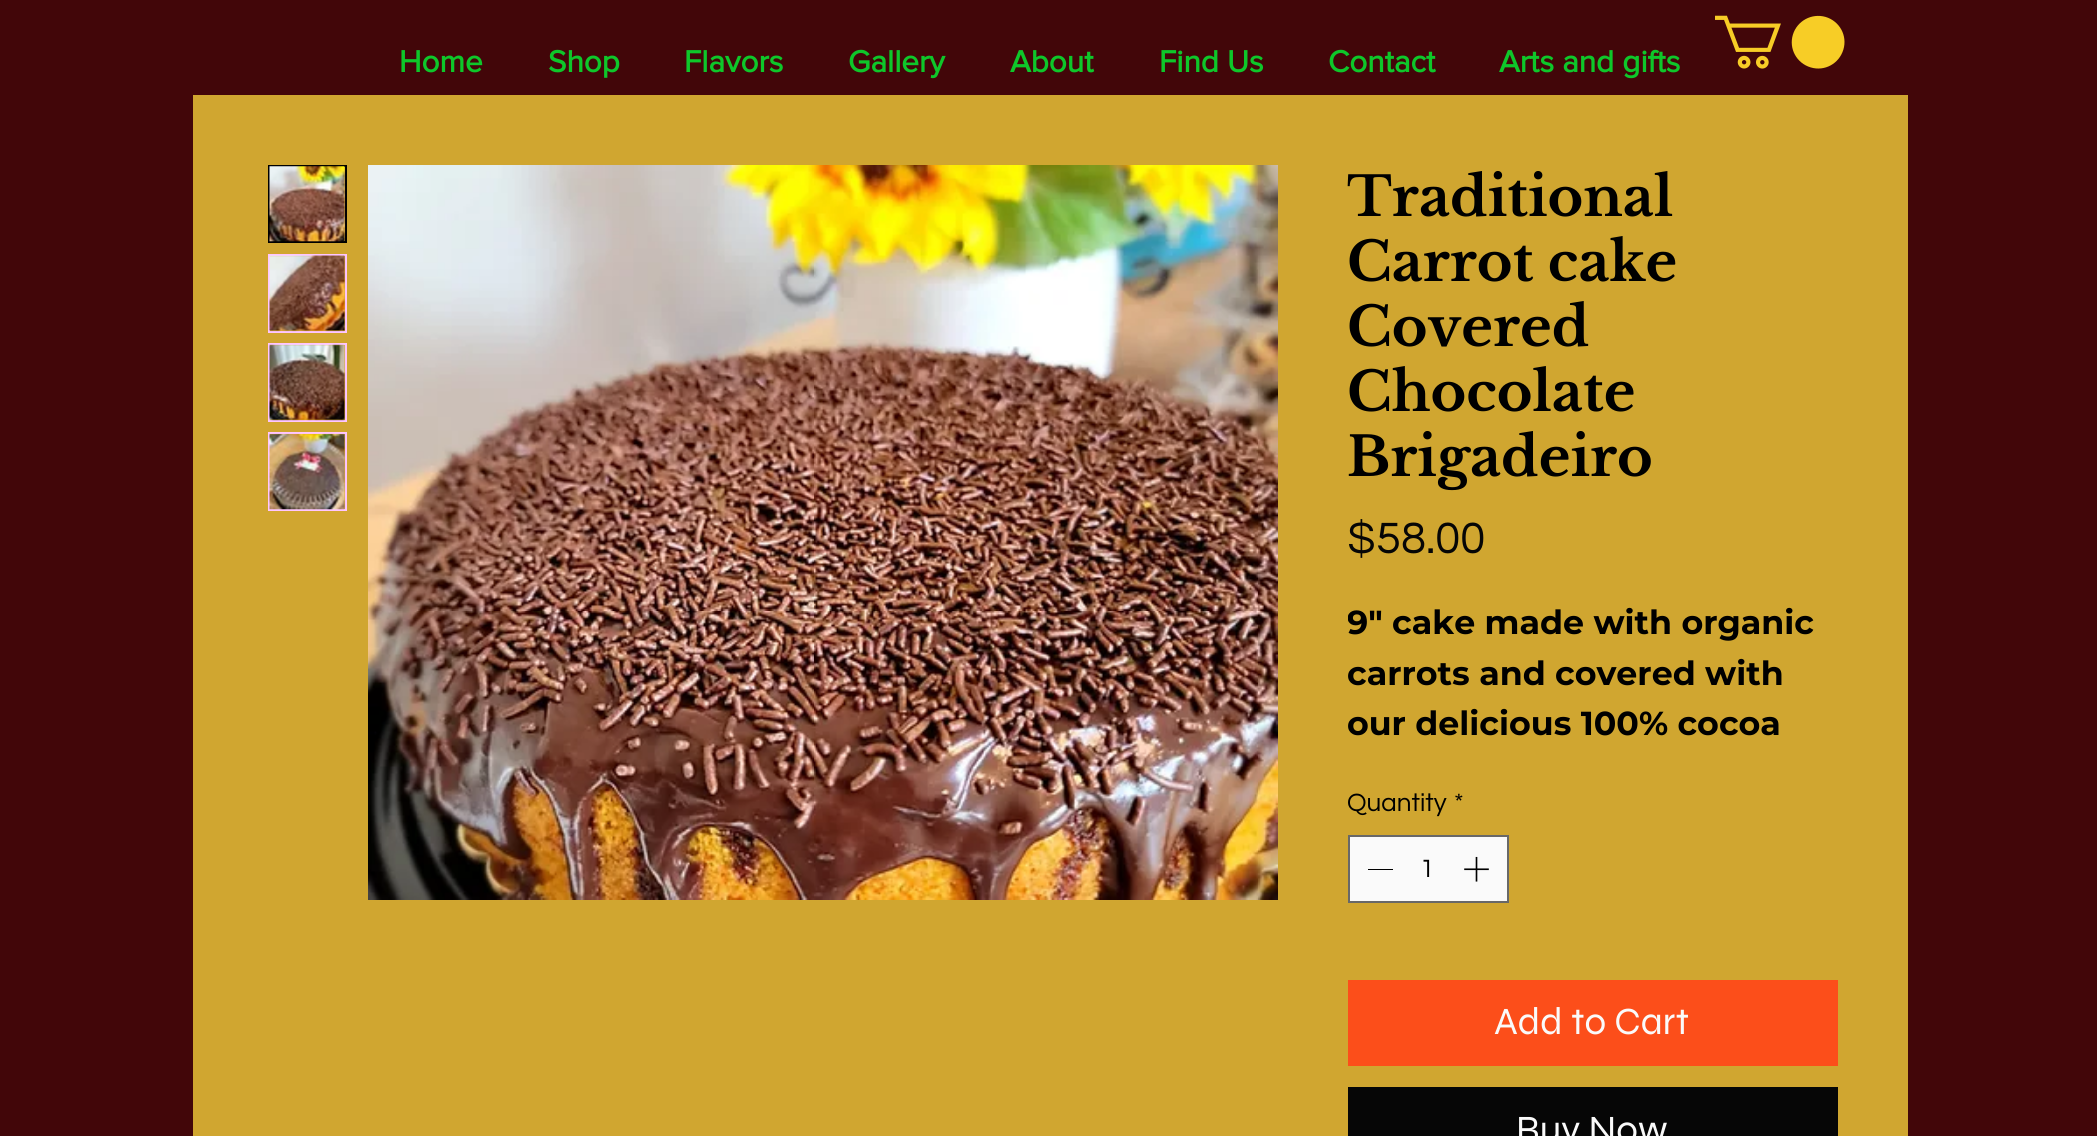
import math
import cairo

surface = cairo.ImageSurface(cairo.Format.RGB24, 2097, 1136)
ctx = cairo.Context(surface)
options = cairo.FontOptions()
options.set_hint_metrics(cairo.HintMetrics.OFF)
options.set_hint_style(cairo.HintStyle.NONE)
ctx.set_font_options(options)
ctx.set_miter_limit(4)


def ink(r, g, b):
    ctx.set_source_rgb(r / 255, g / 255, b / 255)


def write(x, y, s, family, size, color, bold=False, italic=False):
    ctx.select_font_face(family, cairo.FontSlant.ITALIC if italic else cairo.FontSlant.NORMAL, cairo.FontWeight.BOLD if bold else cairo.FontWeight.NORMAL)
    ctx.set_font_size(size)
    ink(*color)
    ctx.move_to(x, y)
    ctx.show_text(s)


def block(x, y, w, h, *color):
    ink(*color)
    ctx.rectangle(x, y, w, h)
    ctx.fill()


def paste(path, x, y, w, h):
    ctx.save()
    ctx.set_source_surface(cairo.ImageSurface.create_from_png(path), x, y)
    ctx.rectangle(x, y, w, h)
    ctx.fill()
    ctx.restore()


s1 = dict(family="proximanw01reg", size=31.5, color=(14, 199, 42), bold=True)
s2 = dict(family="Libre Baskerville", size=54.25, color=(0, 0, 0), bold=True)
s3 = dict(family="Questrial", size=45.5, color=(6, 6, 6))
s4 = dict(family="Montserrat", size=33.25, color=(0, 0, 0), bold=True)
s5 = dict(family="Questrial", size=26, color=(0, 0, 0))
s6 = dict(family="Syne", size=38.5, color=(250, 250, 250))

ink(66, 6, 9)
ctx.paint()
write(399, 72, "Home", **s1)
write(548, 72, "Shop", **s1)
write(684, 72, "Flavors", **s1)
write(848, 72, "Gallery", **s1)
write(1010, 72, "About", **s1)
write(1159, 72, "Find Us", **s1)
write(1328, 72, "Contact", **s1)
write(1499, 72, "Arts and gifts", **s1)
paste("pic1.png", 1715, 15, 130, 54)
block(193, 95, 1715, 1041, 208, 166, 48)
ctx.rectangle(269, 166, 77, 76)
ink(0, 0, 0)
ctx.stroke()
paste("pic2.png", 269, 166, 77, 76)
ctx.rectangle(269, 255, 77, 77)
ink(255, 198, 255)
ctx.stroke()
paste("pic3.png", 269, 255, 77, 77)
ctx.rectangle(269, 344, 77, 77)
ctx.stroke()
paste("pic4.png", 269, 344, 77, 77)
ctx.rectangle(269, 433, 77, 77)
ctx.stroke()
paste("pic5.png", 269, 433, 77, 77)
paste("pic6.png", 368, 165, 910, 735)
write(1347, 216, "Traditional", **s2)
write(1347, 281, "Carrot cake", **s2)
write(1347, 346, "Covered", **s2)
write(1347, 411, "Chocolate", **s2)
write(1347, 476, "Brigadeiro", **s2)
write(1347, 553, "$58.00", **s3)
ctx.save()
ctx.rectangle(1348, 597, 490, 152)
ctx.clip()
write(1347, 634, "9\" cake made with organic", **s4)
write(1347, 685, "carrots and covered with", **s4)
write(1347, 735, "our delicious 100% cocoa", **s4)
ctx.restore()
write(1347, 811, "Quantity", **s5)
write(1454, 811, "*", **s5)
ink(250, 250, 250)
ctx.rectangle(1349, 836, 159, 66)
ctx.fill_preserve()
ink(104, 104, 104)
ctx.stroke()
block(1368, 869, 25, 1, 0, 0, 0)
write(1420, 877, "1", **s5)
paste("pic7.png", 1464, 856, 25, 26)
block(1348, 980, 490, 86, 252, 78, 26)
write(1494, 1034, "Add to Cart", **s6)
block(1348, 1087, 490, 49, 6, 6, 6)
write(1516, 1142, "Buy Now", **s6)
surface.write_to_png("screenshot.png")
